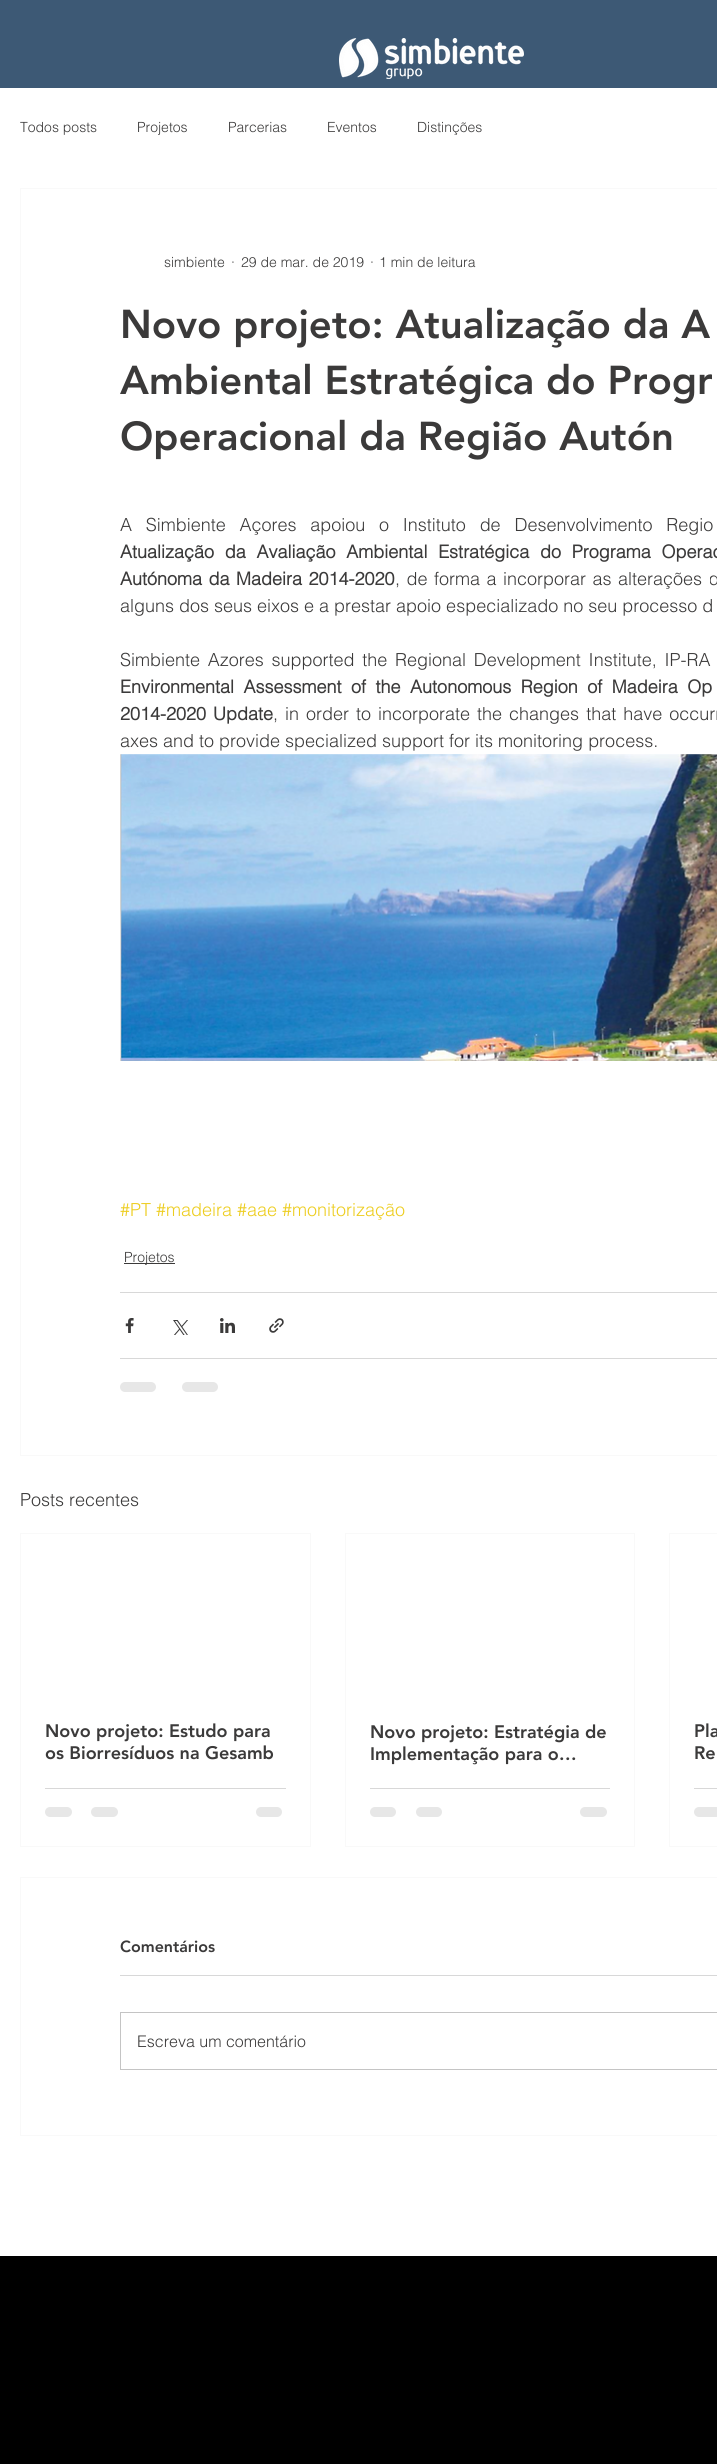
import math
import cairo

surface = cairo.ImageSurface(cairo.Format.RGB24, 717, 2464)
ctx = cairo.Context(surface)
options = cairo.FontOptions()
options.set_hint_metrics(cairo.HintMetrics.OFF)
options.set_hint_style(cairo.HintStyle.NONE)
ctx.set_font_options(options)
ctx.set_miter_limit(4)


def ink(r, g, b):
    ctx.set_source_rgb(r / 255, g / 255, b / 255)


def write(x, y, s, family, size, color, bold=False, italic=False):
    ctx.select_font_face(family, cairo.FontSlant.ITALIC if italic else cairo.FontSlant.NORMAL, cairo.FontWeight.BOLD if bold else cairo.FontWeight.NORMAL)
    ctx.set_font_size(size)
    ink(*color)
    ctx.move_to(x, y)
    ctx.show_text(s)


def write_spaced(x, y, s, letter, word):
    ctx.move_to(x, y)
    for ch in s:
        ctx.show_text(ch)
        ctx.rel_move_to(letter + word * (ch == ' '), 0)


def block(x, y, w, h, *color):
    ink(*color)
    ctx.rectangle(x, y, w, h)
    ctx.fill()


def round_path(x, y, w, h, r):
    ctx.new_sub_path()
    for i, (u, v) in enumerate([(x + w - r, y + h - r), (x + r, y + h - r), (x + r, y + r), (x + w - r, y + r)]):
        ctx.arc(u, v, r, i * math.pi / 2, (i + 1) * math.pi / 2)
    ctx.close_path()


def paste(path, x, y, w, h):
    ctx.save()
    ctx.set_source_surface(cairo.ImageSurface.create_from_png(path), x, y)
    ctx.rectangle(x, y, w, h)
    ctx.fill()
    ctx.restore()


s1 = dict(family="helvetica Light", size=14, color=(59, 58, 58))
s2 = dict(family="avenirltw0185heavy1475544 Black", size=40, color=(59, 58, 58))
s3 = dict(family="helvetica Light", size=18, color=(59, 58, 58))
s4 = dict(family="helvetica Light", size=18, color=(237, 205, 31))
s5 = dict(family="avenirltw0185heavy1475544 Black", size=18, color=(59, 58, 58))
s6 = dict(family="avenirltw0185heavy1475544 Black", size=16, color=(59, 58, 58))
s7 = dict(family="helvetica Light", size=16, color=(59, 58, 58))

ink(0, 0, 0)
ctx.paint()
block(0, 0, 717, 88, 61, 89, 117)
paste("pic1.png", 339, 38, 185, 41)
block(0, 88, 717, 2168, 255, 255, 255)
write(20, 132, "Todos posts", **s1)
write(137, 132, "Projetos", **s1)
write(228, 132, "Parcerias", **s1)
write(327, 132, "Eventos", **s1)
write(417, 132, "Distinções", **s1)
ctx.rectangle(20.5, 188.5, 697, 1267)
ink(249, 249, 249)
ctx.set_line_width(1)
ctx.stroke()
write(164, 267, "simbiente", **s1)
write(231, 267, "·", **s1)
write(241, 267, "29 de mar. de 2019", **s1)
write(370, 267, "·", **s1)
write(379, 267, "1 min de leitura", **s1)
write(120, 338, "Novo projeto: Atualização da A", **s2)
write(120, 394, "Ambiental Estratégica do Progr", **s2)
write(120, 450, "Operacional da Região Autón", **s2)
ctx.select_font_face("helvetica Light")
ctx.set_font_size(18)
write_spaced(120, 531, "A Simbiente Açores apoiou o Instituto de Desenvolvimento Regio", 0, 8.75)
ctx.select_font_face("helvetica", cairo.FontSlant.NORMAL, cairo.FontWeight.BOLD)
write_spaced(120, 558, "Atualização da Avaliação Ambiental Estratégica do Programa Operac", 0, 5.75)
write_spaced(120, 585, "Autónoma da Madeira 2014-2020", 0, 1.5)
ctx.select_font_face("helvetica Light")
write_spaced(395, 585, ", de forma a incorporar as alterações q", 0, 1.5)
write(120, 612, "alguns dos seus eixos e a prestar apoio especializado no seu processo d", **s3)
write_spaced(120, 666, "Simbiente Azores supported the Regional Development Institute, IP-RA", 0, 2.75)
ctx.select_font_face("helvetica", cairo.FontSlant.NORMAL, cairo.FontWeight.BOLD)
write_spaced(120, 693, "Environmental Assessment of the Autonomous Region of Madeira Op", 0, 4.5)
write_spaced(120, 720, "2014-2020 Update", 0, 2)
ctx.select_font_face("helvetica Light")
write_spaced(273, 720, ", in order to incorporate the changes that have occurr", 0, 2)
write(120, 747, "axes and to provide specialized support for its monitoring process.", **s3)
paste("pic2.png", 120, 754, 597, 307)
write(120, 1216, "#PT #madeira #aae #monitorização", **s4)
block(124, 1263, 51, 1, 59, 58, 58)
write(124, 1262, "Projetos", **s1)
block(120, 1292, 597, 1, 216, 216, 216)
paste("pic3.png", 125, 1318, 9, 15)
paste("pic4.png", 173, 1320, 15, 15)
paste("pic5.png", 220, 1318, 15, 15)
paste("pic6.png", 269, 1318, 15, 15)
block(120, 1358, 597, 1, 216, 216, 216)
ink(231, 231, 231)
round_path(120, 1382, 36, 10, 5)
ctx.fill()
round_path(182, 1382, 36, 10, 5)
ctx.fill()
write(20, 1506, "Posts recentes", **s3)
ctx.rectangle(20.5, 1533.5, 290, 313)
ink(249, 249, 249)
ctx.stroke()
write(45, 1737, "Novo projeto: Estudo para", **s5)
write(45, 1759, "os Biorresíduos na Gesamb", **s5)
block(45, 1788, 241, 1, 216, 216, 216)
ink(231, 231, 231)
round_path(45, 1807, 27, 10, 5)
ctx.fill()
round_path(91, 1807, 27, 10, 5)
ctx.fill()
round_path(256, 1807, 26, 10, 5)
ctx.fill()
ctx.rectangle(345.5, 1533.5, 289, 313)
ink(249, 249, 249)
ctx.stroke()
write(370, 1738, "Novo projeto: Estratégia de", **s5)
write(370, 1760, "Implementação para o…", **s5)
block(370, 1788, 240, 1, 216, 216, 216)
ink(231, 231, 231)
round_path(370, 1807, 26, 10, 5)
ctx.fill()
round_path(416, 1807, 26, 10, 5)
ctx.fill()
round_path(580, 1807, 27, 10, 5)
ctx.fill()
ctx.rectangle(669.5, 1533.5, 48, 313)
ink(249, 249, 249)
ctx.stroke()
write(694, 1737, "Pla", **s5)
write(694, 1759, "Re", **s5)
block(694, 1788, 23, 1, 216, 216, 216)
ink(231, 231, 231)
round_path(694, 1807, 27, 10, 5)
ctx.fill()
ctx.rectangle(20.5, 1877.5, 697, 258)
ink(249, 249, 249)
ctx.stroke()
write(120, 1952, "Comentários", **s6)
block(120, 1975, 597, 1, 216, 216, 216)
ctx.rectangle(120.5, 2012.5, 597, 57)
ink(196, 196, 196)
ctx.stroke()
write(137, 2047, "Escreva um comentário", **s7)
surface.write_to_png("screenshot.png")
